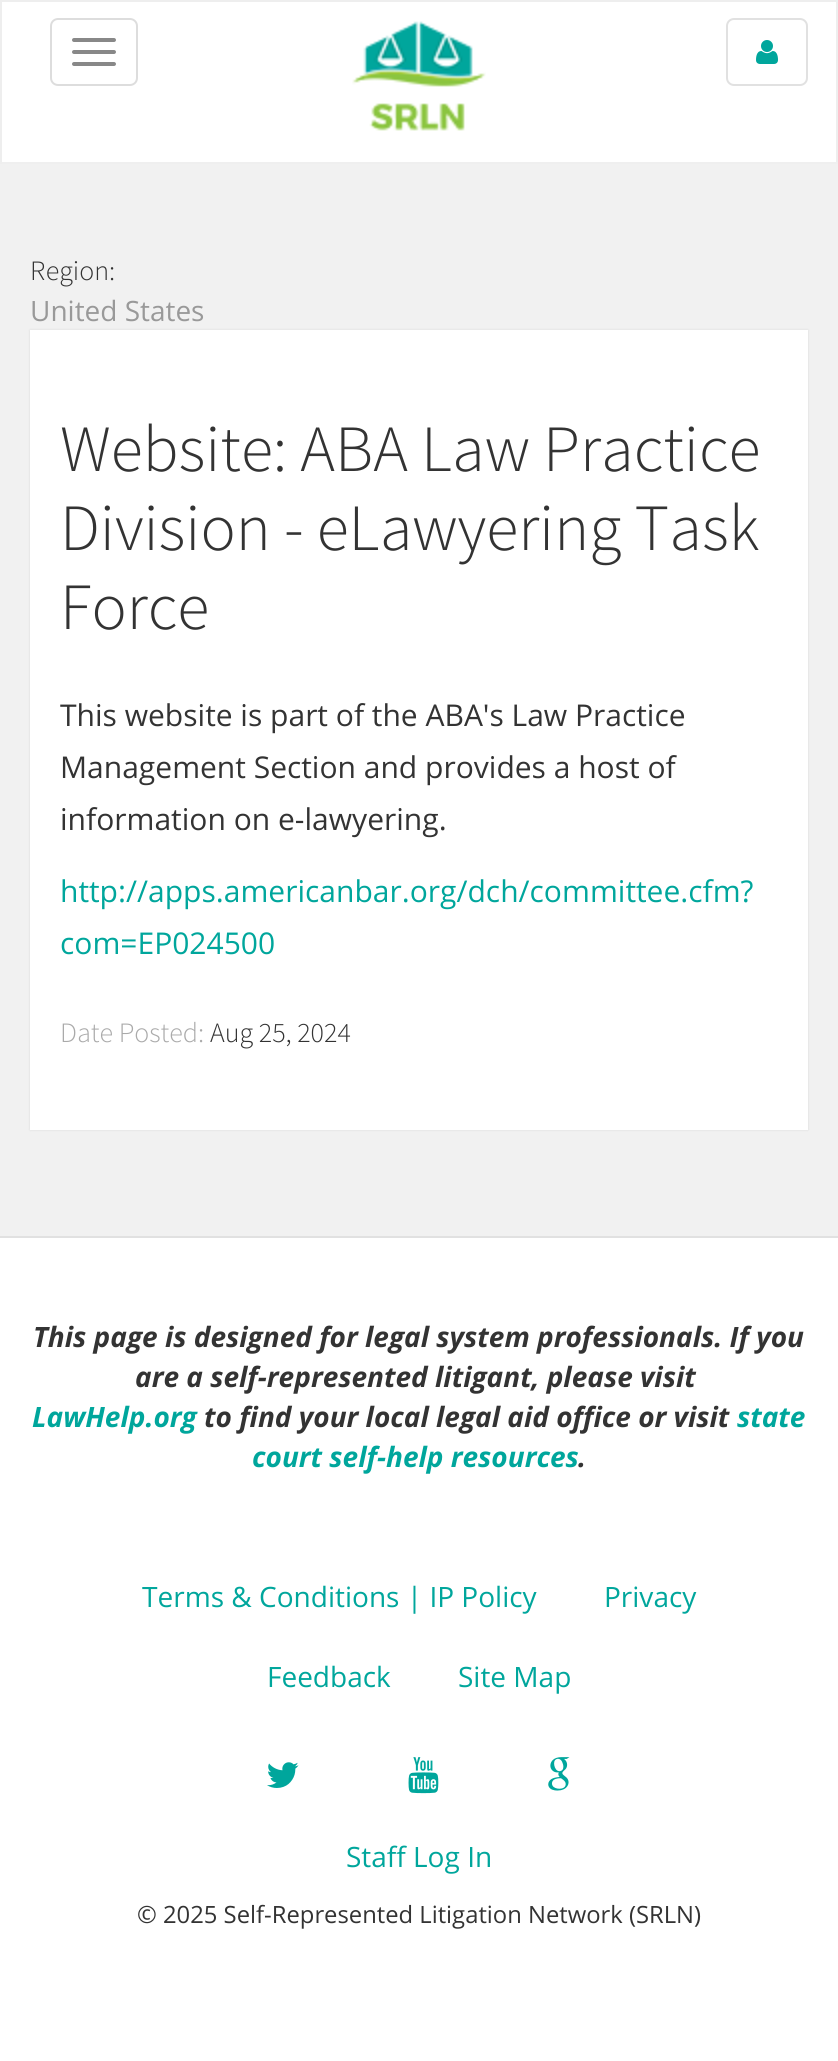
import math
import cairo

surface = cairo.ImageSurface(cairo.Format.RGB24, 838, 2061)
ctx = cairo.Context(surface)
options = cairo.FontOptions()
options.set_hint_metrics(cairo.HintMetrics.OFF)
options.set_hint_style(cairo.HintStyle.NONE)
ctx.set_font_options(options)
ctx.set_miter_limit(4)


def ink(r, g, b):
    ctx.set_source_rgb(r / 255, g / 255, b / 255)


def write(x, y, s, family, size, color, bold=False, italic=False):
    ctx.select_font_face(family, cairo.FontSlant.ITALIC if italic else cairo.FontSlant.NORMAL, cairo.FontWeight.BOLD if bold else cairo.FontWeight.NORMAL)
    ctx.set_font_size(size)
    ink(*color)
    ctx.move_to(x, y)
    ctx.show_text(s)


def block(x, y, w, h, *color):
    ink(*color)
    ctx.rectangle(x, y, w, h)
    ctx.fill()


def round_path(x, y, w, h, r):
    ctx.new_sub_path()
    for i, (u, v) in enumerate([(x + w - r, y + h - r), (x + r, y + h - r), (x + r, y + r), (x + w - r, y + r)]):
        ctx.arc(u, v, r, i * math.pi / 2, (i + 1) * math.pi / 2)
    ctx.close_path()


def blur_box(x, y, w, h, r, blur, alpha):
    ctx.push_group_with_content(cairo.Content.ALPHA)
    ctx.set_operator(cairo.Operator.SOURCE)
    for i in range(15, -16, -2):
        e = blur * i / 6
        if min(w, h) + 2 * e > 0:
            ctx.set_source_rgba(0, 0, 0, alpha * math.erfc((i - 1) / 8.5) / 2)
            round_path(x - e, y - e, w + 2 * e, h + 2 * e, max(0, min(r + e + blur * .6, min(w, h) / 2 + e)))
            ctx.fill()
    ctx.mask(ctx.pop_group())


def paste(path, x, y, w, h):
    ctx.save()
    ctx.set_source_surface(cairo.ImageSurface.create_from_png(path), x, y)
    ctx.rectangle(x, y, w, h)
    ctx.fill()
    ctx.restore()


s1 = dict(family="Source Sans Pro Light", size=28, color=(51, 51, 51))
s2 = dict(family="Open Sans", size=28, color=(153, 153, 153))
s3 = dict(family="Source Sans Pro Light", size=66, color=(51, 51, 51))
s4 = dict(family="Open Sans", size=30, color=(51, 51, 51))
s5 = dict(family="Open Sans", size=30, color=(0, 166, 156))
s6 = dict(family="Source Sans Pro Light", size=28, color=(170, 170, 170))
s7 = dict(family="Open Sans", size=28, color=(51, 51, 51), bold=True, italic=True)
s8 = dict(family="Open Sans", size=28, color=(0, 166, 156), bold=True, italic=True)
s9 = dict(family="Open Sans", size=28, color=(0, 166, 156))
s10 = dict(family="Open Sans", size=23.8, color=(51, 51, 51))

ink(255, 255, 255)
ctx.paint()
block(0, 164, 838, 1072, 241, 241, 241)
block(0, 0, 838, 2, 238, 238, 238)
block(836, 0, 2, 164, 238, 238, 238)
block(0, 162, 838, 2, 239, 239, 239)
block(0, 0, 2, 164, 238, 238, 238)
round_path(51, 19, 86, 66, 7)
ink(221, 221, 221)
ctx.stroke()
ink(136, 136, 136)
round_path(72, 38, 44, 4, 2)
ctx.fill()
round_path(72, 50, 44, 4, 2)
ctx.fill()
round_path(72, 62, 44, 4, 2)
ctx.fill()
paste("pic1.png", 352, 21, 134, 110)
round_path(727, 19, 80, 66, 7)
ink(225, 225, 225)
ctx.stroke()
paste("pic2.png", 756, 40, 22, 24)
write(30, 280, "Region:", **s1)
write(30, 321, "United States", **s2)
ink(0, 0, 0)
blur_box(30, 330, 778, 800, 0, 1, 0.1)
block(30, 330, 778, 800, 255, 255, 255)
write(60, 471, "Website: ABA Law Practice", **s3)
write(60, 550, "Division - eLawyering Task", **s3)
write(60, 629, "Force", **s3)
write(60, 726, "This website is part of the ABA's Law Practice", **s4)
write(60, 778, "Management Section and provides a host of", **s4)
write(60, 830, "information on e-lawyering.", **s4)
write(60, 902, "http://apps.americanbar.org/dch/committee.cfm?", **s5)
write(60, 954, "com=EP024500", **s5)
write(60, 1042, "Date Posted:", **s6)
write(210, 1042, "Aug 25, 2024", **s1)
block(0, 1236, 838, 2, 225, 225, 225)
write(33, 1347, "This page is designed for legal system professionals. If you", **s7)
write(135, 1387, "are a self-represented litigant, please visit", **s7)
write(32, 1427, "LawHelp.org", **s8)
write(204, 1427, "to find your local legal aid office or visit", **s7)
write(737, 1427, "state", **s8)
write(252, 1467, "court self-help resources", **s8)
write(578, 1467, ".", **s7)
write(142, 1607, "Terms & Conditions | IP Policy", **s9)
write(604, 1607, "Privacy", **s9)
write(267, 1687, "Feedback", **s9)
write(458, 1687, "Site Map", **s9)
paste("pic3.png", 267, 1762, 32, 26)
paste("pic4.png", 408, 1757, 31, 37)
paste("pic5.png", 548, 1757, 22, 34)
write(346, 1867, "Staff Log In", **s9)
write(137, 1923, "© 2025 Self-Represented Litigation Network (SRLN)", **s10)
surface.write_to_png("screenshot.png")
